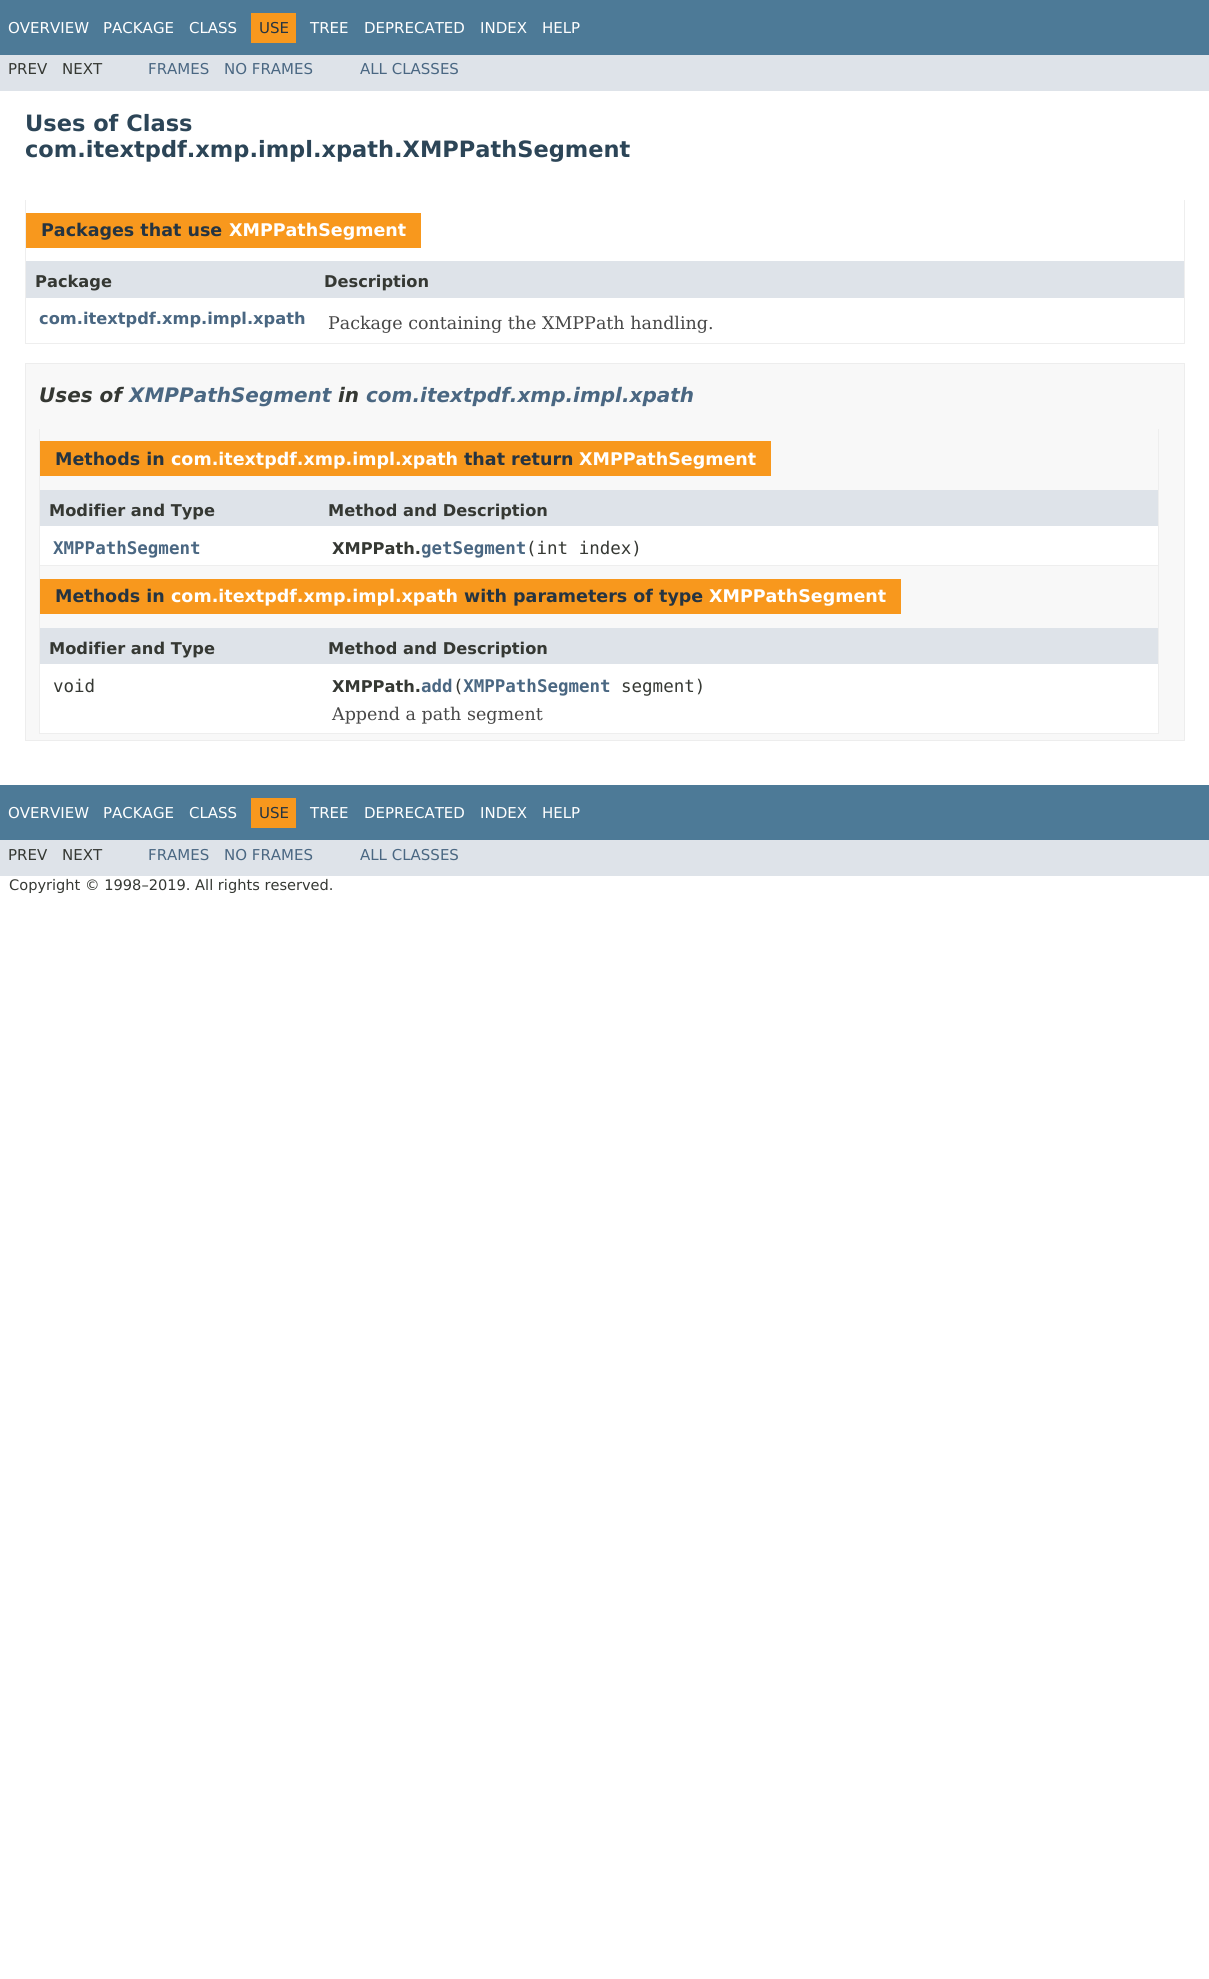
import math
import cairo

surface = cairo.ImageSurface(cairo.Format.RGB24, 1209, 1979)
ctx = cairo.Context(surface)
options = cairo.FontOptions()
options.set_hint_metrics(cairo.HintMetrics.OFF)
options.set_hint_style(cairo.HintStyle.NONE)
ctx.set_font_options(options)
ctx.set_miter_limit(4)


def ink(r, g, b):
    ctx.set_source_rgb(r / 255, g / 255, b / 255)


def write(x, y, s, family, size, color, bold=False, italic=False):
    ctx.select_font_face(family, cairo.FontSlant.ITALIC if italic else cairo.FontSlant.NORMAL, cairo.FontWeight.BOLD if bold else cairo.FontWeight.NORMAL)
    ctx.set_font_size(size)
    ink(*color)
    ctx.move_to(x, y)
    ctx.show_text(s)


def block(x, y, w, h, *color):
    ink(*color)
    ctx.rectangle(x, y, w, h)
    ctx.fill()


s1 = dict(family="DejaVu Sans", size=15, color=(255, 255, 255))
s2 = dict(family="DejaVu Sans", size=15, color=(37, 52, 65))
s3 = dict(family="DejaVu Sans", size=15, color=(53, 56, 51))
s4 = dict(family="DejaVu Sans", size=15, color=(74, 103, 130))
s5 = dict(family="DejaVu Sans", size=22.5, color=(44, 69, 87), bold=True)
s6 = dict(family="DejaVu Sans", size=17.5, color=(37, 52, 65), bold=True)
s7 = dict(family="DejaVu Sans", size=17.5, color=(255, 255, 255), bold=True)
s8 = dict(family="DejaVu Sans", size=16.25, color=(53, 56, 51), bold=True)
s9 = dict(family="DejaVu Sans", size=16.25, color=(74, 103, 130), bold=True)
s10 = dict(family="DejaVu Serif", size=17.5, color=(71, 71, 71))
s11 = dict(family="DejaVu Sans", size=20, color=(53, 56, 51), bold=True, italic=True)
s12 = dict(family="DejaVu Sans", size=20, color=(74, 103, 130), bold=True, italic=True)
s13 = dict(family="DejaVu Sans Mono", size=17.5, color=(74, 103, 130), bold=True)
s14 = dict(family="DejaVu Sans Mono", size=17.5, color=(53, 56, 51))
s15 = dict(family="DejaVu Sans", size=14.6, color=(53, 56, 51))

ink(255, 255, 255)
ctx.paint()
block(0, 0, 1209, 55, 77, 122, 151)
write(8, 33, "OVERVIEW", **s1)
write(103, 33, "PACKAGE", **s1)
write(189, 33, "CLASS", **s1)
block(251, 13, 45, 30, 248, 152, 29)
write(259, 33, "USE", **s2)
write(310, 33, "TREE", **s1)
write(364, 33, "DEPRECATED", **s1)
write(480, 33, "INDEX", **s1)
write(542, 33, "HELP", **s1)
block(0, 55, 1209, 36, 222, 227, 233)
write(8, 74, "PREV", **s3)
write(62, 74, "NEXT", **s3)
write(148, 74, "FRAMES", **s4)
write(224, 74, "NO FRAMES", **s4)
write(360, 74, "ALL CLASSES", **s4)
write(25, 131, "Uses of Class", **s5)
write(25, 157, "com.itextpdf.xmp.impl.xpath.XMPPathSegment", **s5)
block(1184, 200, 1, 144, 238, 238, 238)
block(25, 343, 1160, 1, 238, 238, 238)
block(25, 200, 1, 144, 238, 238, 238)
block(26, 213, 395, 35, 248, 152, 29)
write(41, 236, "Packages that use", **s6)
write(229, 236, "XMPPathSegment", **s7)
block(26, 261, 1158, 37, 222, 227, 233)
write(35, 287, "Package", **s8)
write(324, 287, "Description", **s8)
write(39, 324, "com.itextpdf.xmp.impl.xpath", **s9)
write(328, 329, "Package containing the XMPPath handling.", **s10)
ink(248, 248, 248)
ctx.rectangle(25.5, 363.5, 1159, 377)
ctx.fill_preserve()
ink(237, 237, 237)
ctx.set_line_width(1)
ctx.stroke()
write(39, 402, "Uses of", **s11)
write(129, 402, "XMPPathSegment", **s12)
write(338, 402, "in", **s11)
write(366, 402, "com.itextpdf.xmp.impl.xpath", **s12)
block(1158, 429, 1, 305, 238, 238, 238)
block(39, 565, 1120, 1, 238, 238, 238)
block(39, 429, 1, 137, 238, 238, 238)
block(40, 441, 731, 35, 248, 152, 29)
write(55, 465, "Methods in", **s6)
write(171, 465, "com.itextpdf.xmp.impl.xpath", **s7)
write(464, 465, "that return", **s6)
write(579, 465, "XMPPathSegment", **s7)
block(40, 490, 1118, 36, 222, 227, 233)
write(49, 516, "Modifier and Type", **s8)
write(328, 516, "Method and Description", **s8)
block(40, 526, 1118, 39, 255, 255, 255)
write(53, 554, "XMPPathSegment", **s13)
write(332, 554, "XMPPath.", **s8)
write(421, 554, "getSegment", **s13)
write(526, 554, "(int index)", **s14)
block(39, 733, 1120, 1, 238, 238, 238)
block(39, 566, 1, 168, 238, 238, 238)
block(40, 579, 861, 35, 248, 152, 29)
write(55, 602, "Methods in", **s6)
write(171, 602, "com.itextpdf.xmp.impl.xpath", **s7)
write(464, 602, "with parameters of type", **s6)
write(709, 602, "XMPPathSegment", **s7)
block(40, 628, 1118, 36, 222, 227, 233)
write(49, 654, "Modifier and Type", **s8)
write(328, 654, "Method and Description", **s8)
block(40, 664, 1118, 69, 255, 255, 255)
write(53, 692, "void", **s14)
write(421, 692, "add XMPPathSegment", **s13)
write(332, 692, "XMPPath.", **s8)
write(453, 692, "(", **s14)
write(621, 692, "segment)", **s14)
write(332, 720, "Append a path segment", **s10)
block(0, 785, 1209, 55, 77, 122, 151)
write(8, 818, "OVERVIEW", **s1)
write(103, 818, "PACKAGE", **s1)
write(189, 818, "CLASS", **s1)
block(251, 798, 45, 30, 248, 152, 29)
write(259, 818, "USE", **s2)
write(310, 818, "TREE", **s1)
write(364, 818, "DEPRECATED", **s1)
write(480, 818, "INDEX", **s1)
write(542, 818, "HELP", **s1)
block(0, 840, 1209, 36, 222, 227, 233)
write(8, 860, "PREV", **s3)
write(62, 860, "NEXT", **s3)
write(148, 860, "FRAMES", **s4)
write(224, 860, "NO FRAMES", **s4)
write(360, 860, "ALL CLASSES", **s4)
write(9, 890, "Copyright © 1998–2019. All rights reserved.", **s15)
surface.write_to_png("screenshot.png")
